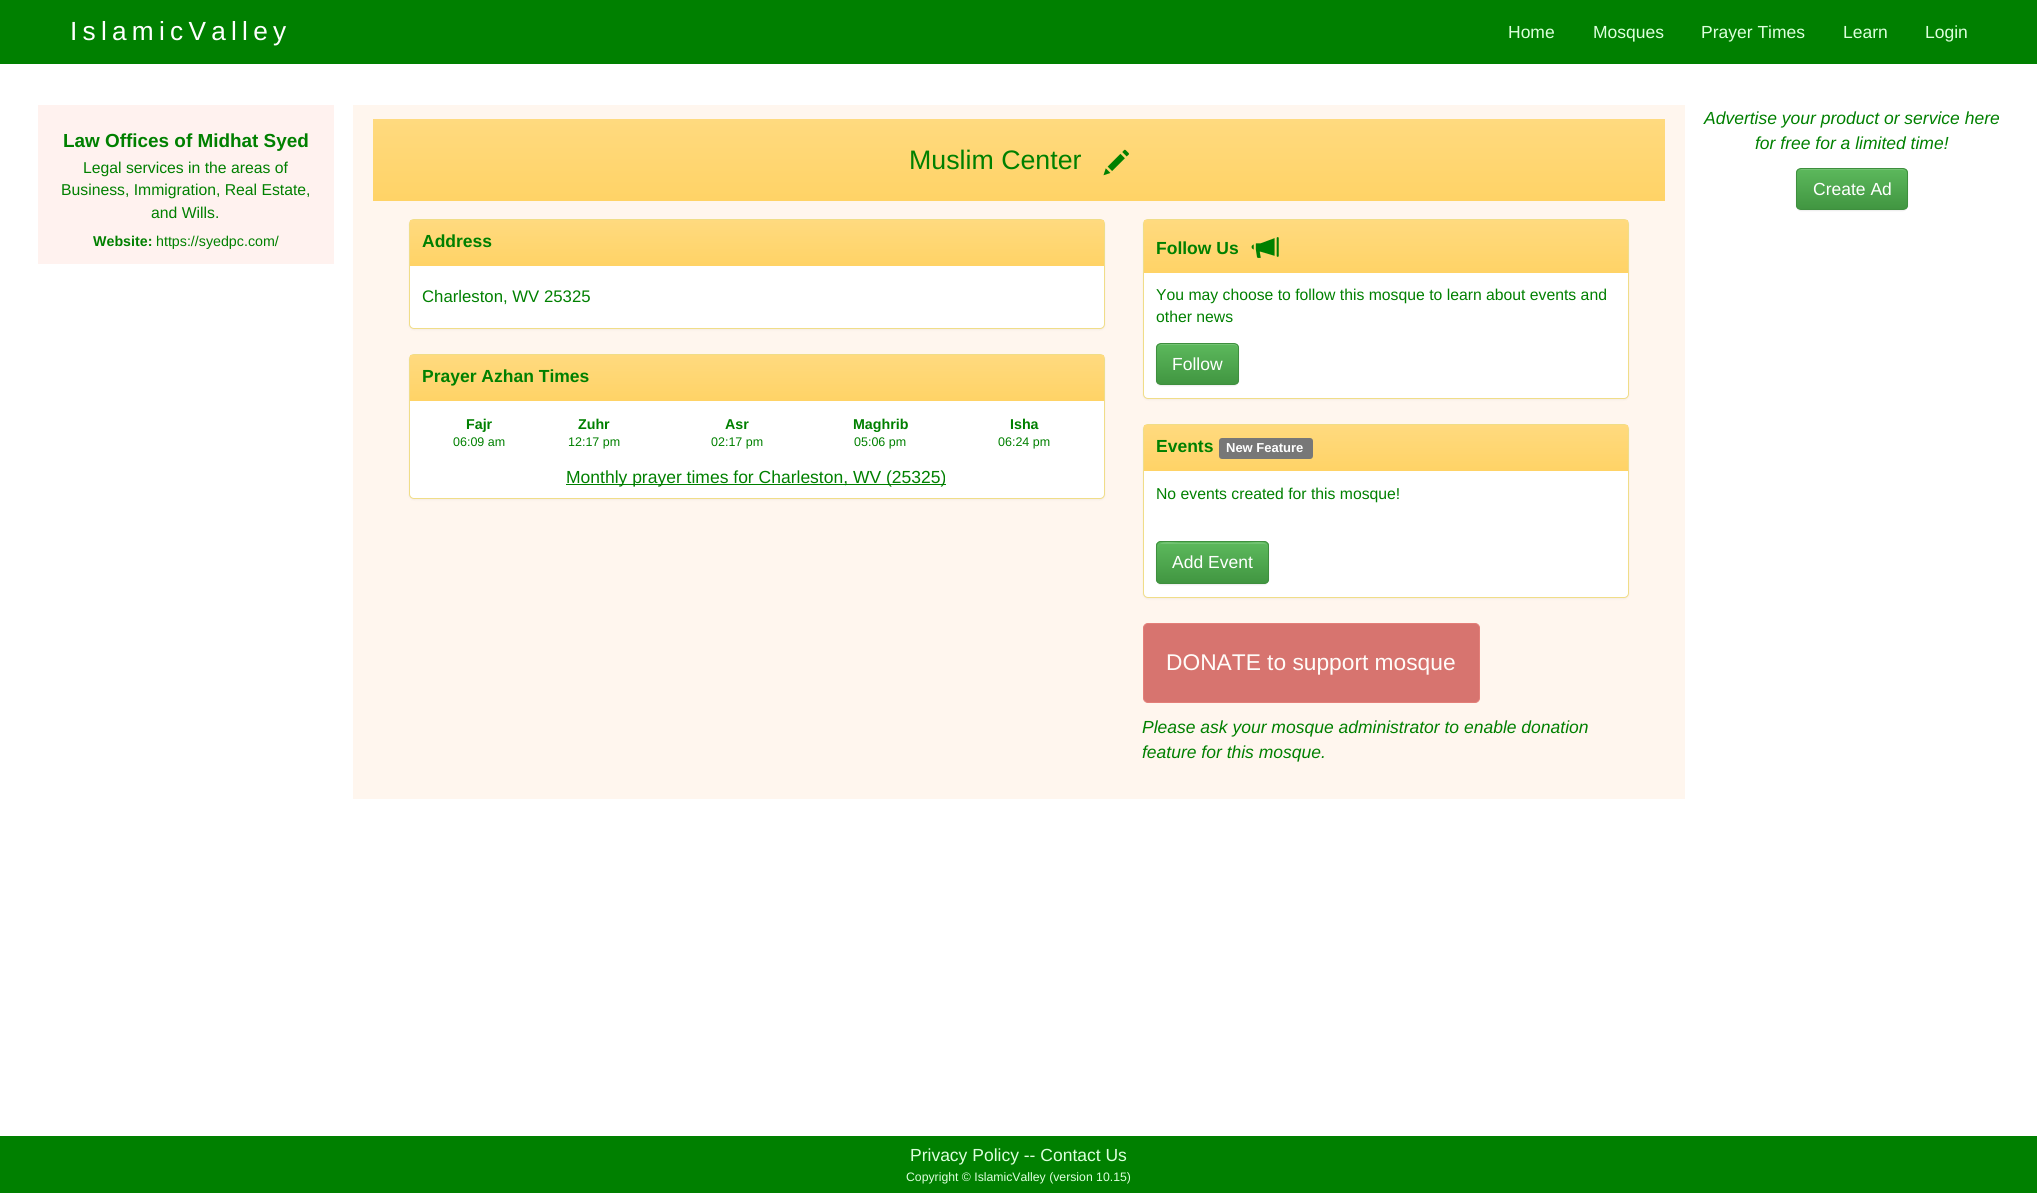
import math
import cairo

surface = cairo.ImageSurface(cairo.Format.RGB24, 2037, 1193)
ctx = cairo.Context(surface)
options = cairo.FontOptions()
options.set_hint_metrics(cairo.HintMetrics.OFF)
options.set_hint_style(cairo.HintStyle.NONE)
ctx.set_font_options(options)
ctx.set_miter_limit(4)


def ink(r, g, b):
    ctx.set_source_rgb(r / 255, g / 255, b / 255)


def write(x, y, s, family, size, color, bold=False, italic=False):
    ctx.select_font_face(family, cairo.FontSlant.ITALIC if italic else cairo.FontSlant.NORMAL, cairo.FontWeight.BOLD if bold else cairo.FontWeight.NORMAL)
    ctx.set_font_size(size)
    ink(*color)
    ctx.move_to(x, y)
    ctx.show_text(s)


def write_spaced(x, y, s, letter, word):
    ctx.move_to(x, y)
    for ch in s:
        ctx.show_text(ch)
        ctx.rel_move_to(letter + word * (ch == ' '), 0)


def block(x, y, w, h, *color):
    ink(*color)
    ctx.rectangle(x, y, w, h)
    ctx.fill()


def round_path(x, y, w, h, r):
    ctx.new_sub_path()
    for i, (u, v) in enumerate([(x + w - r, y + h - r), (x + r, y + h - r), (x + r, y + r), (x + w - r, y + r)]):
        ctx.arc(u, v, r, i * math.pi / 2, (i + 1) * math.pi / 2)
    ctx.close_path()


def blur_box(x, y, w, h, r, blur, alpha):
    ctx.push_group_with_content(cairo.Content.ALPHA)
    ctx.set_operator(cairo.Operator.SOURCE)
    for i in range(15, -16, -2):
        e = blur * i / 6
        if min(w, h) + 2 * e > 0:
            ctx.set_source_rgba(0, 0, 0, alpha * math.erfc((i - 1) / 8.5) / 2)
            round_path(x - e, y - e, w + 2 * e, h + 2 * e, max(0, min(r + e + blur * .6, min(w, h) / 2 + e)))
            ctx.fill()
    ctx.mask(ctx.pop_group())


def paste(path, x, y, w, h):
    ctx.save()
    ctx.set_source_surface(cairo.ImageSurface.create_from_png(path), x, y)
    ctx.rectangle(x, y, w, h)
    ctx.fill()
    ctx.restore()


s1 = dict(family="Liberation Sans", size=17.5, color=(221, 255, 221))
s2 = dict(family="Liberation Sans", size=18.9, color=(0, 128, 0), bold=True)
s3 = dict(family="Liberation Sans", size=15.75, color=(0, 128, 0))
s4 = dict(family="Liberation Sans", size=14.25, color=(0, 128, 0), bold=True)
s5 = dict(family="Liberation Sans", size=14.25, color=(0, 128, 0))
s6 = dict(family="Liberation Sans", size=26.75, color=(0, 128, 0))
s7 = dict(family="Liberation Sans", size=17.5, color=(0, 128, 0), bold=True)
s8 = dict(family="Liberation Sans", size=16.75, color=(0, 128, 0))
s9 = dict(family="Liberation Sans", size=12.5, color=(0, 128, 0))
s10 = dict(family="Liberation Sans", size=17.5, color=(0, 128, 0))
s11 = dict(family="Liberation Sans", size=17.5, color=(255, 255, 255))
s12 = dict(family="Liberation Sans", size=13, color=(255, 255, 255), bold=True)
s13 = dict(family="Liberation Sans", size=22.75, color=(255, 252, 249))
s14 = dict(family="Liberation Sans", size=17.5, color=(0, 128, 0), italic=True)
s15 = dict(family="Liberation Sans", size=12.25, color=(221, 255, 221))

ink(255, 255, 255)
ctx.paint()
block(0, 0, 2037, 64, 0, 128, 0)
ctx.select_font_face("Liberation Sans")
ctx.set_font_size(26.25)
ink(255, 255, 255)
write_spaced(70, 40, "IslamicValley", 5.25, 0)
write(1508, 38, "Home", **s1)
write(1593, 38, "Mosques", **s1)
write(1701, 38, "Prayer Times", **s1)
write(1843, 38, "Learn", **s1)
write(1925, 38, "Login", **s1)
block(38, 105, 296, 159, 255, 242, 239)
write(63, 147, "Law Offices of Midhat Syed", **s2)
write(83, 173, "Legal services in the areas of", **s3)
write(61, 195, "Business, Immigration, Real Estate,", **s3)
write(151, 218, "and Wills.", **s3)
write(93, 246, "Website:", **s4)
write(156, 246, "https://syedpc.com/", **s5)
block(353, 105, 1332, 694, 255, 246, 238)
gradient = cairo.LinearGradient(1019, 119, 1019, 201)
gradient.add_color_stop_rgba(0, 1, 0.855, 0.498, 1)
gradient.add_color_stop_rgba(1, 1, 0.827, 0.4, 1)
ctx.set_source(gradient)
ctx.rectangle(373, 119, 1292, 82)
ctx.fill()
write(909, 169, "Muslim Center", **s6)
paste("pic1.png", 1103, 149, 26, 27)
ink(0, 0, 0)
blur_box(409, 220, 696, 110, 5, 1, 0.05)
ink(255, 255, 255)
round_path(409.5, 219.5, 695, 109, 4.5)
ctx.fill_preserve()
ink(240, 221, 136)
ctx.set_line_width(1)
ctx.stroke()
gradient = cairo.LinearGradient(757, 220, 757, 266)
gradient.add_color_stop_rgba(0, 1, 0.855, 0.498, 1)
gradient.add_color_stop_rgba(1, 1, 0.827, 0.4, 1)
ctx.set_source(gradient)
ctx.rectangle(410, 220, 694, 46)
ctx.fill()
write(422, 247, "Address", **s7)
write(422, 302, "Charleston, WV 25325", **s8)
ink(0, 0, 0)
blur_box(409, 355, 696, 145, 5, 1, 0.05)
ink(255, 255, 255)
round_path(409.5, 354.5, 695, 144, 4.5)
ctx.fill_preserve()
ink(240, 221, 136)
ctx.stroke()
gradient = cairo.LinearGradient(757, 355, 757, 401)
gradient.add_color_stop_rgba(0, 1, 0.855, 0.498, 1)
gradient.add_color_stop_rgba(1, 1, 0.827, 0.4, 1)
ctx.set_source(gradient)
ctx.rectangle(410, 355, 694, 46)
ctx.fill()
write(422, 382, "Prayer Azhan Times", **s7)
write(466, 429, "Fajr", **s4)
write(578, 429, "Zuhr", **s4)
write(725, 429, "Asr", **s4)
write(853, 429, "Maghrib", **s4)
write(1010, 429, "Isha", **s4)
write(453, 446, "06:09 am", **s9)
write(568, 446, "12:17 pm", **s9)
write(711, 446, "02:17 pm", **s9)
write(854, 446, "05:06 pm", **s9)
write(998, 446, "06:24 pm", **s9)
block(566, 484, 380, 1, 0, 128, 0)
write(566, 483, "Monthly prayer times for Charleston, WV (25325)", **s10)
ink(0, 0, 0)
blur_box(1143, 220, 486, 180, 5, 1, 0.05)
ink(255, 255, 255)
round_path(1143.5, 219.5, 485, 179, 4.5)
ctx.fill_preserve()
ink(240, 221, 136)
ctx.stroke()
gradient = cairo.LinearGradient(1386, 220, 1386, 273)
gradient.add_color_stop_rgba(0, 1, 0.855, 0.498, 1)
gradient.add_color_stop_rgba(1, 1, 0.827, 0.4, 1)
ctx.set_source(gradient)
ctx.rectangle(1144, 220, 484, 53)
ctx.fill()
write(1156, 254, "Follow Us", **s7)
paste("pic2.png", 1251, 237, 28, 21)
write(1156, 300, "You may choose to follow this mosque to learn about events and", **s3)
write(1156, 322, "other news", **s3)
ink(0, 0, 0)
blur_box(1156, 344, 83, 42, 5, 0.5, 0.07)
ctx.save()
round_path(1156, 343, 83, 42, 5)
ctx.clip()
gradient = cairo.LinearGradient(1198, 344, 1198, 384)
gradient.add_color_stop_rgba(0, 0.361, 0.722, 0.361, 1)
gradient.add_color_stop_rgba(1, 0.255, 0.588, 0.255, 1)
ctx.set_source(gradient)
ctx.rectangle(1156, 344, 83, 40)
ctx.fill()
ctx.restore()
ink(116, 195, 116)
ctx.new_path()
ctx.move_to(1161, 345)
ctx.line_to(1234, 345)
ctx.curve_to(1236, 345, 1238, 347, 1238, 349)
ctx.curve_to(1238, 341, 1227, 344, 1222, 344)
ctx.line_to(1174, 344)
ctx.curve_to(1169, 344, 1158, 341, 1158, 349)
ctx.curve_to(1158, 347, 1159, 345, 1161, 345)
ctx.close_path()
ctx.fill()
round_path(1156.5, 343.5, 82, 41, 4.5)
ink(62, 143, 62)
ctx.stroke()
write(1172, 370, "Follow", **s11)
ink(0, 0, 0)
blur_box(1143, 425, 486, 174, 5, 1, 0.05)
ink(255, 255, 255)
round_path(1143.5, 424.5, 485, 173, 4.5)
ctx.fill_preserve()
ink(240, 221, 136)
ctx.stroke()
gradient = cairo.LinearGradient(1386, 425, 1386, 471)
gradient.add_color_stop_rgba(0, 1, 0.855, 0.498, 1)
gradient.add_color_stop_rgba(1, 1, 0.827, 0.4, 1)
ctx.set_source(gradient)
ctx.rectangle(1144, 425, 484, 46)
ctx.fill()
write(1156, 452, "Events", **s7)
ink(119, 119, 119)
round_path(1219, 438, 94, 21, 3)
ctx.fill()
write(1226, 452, "New Feature", **s12)
write(1156, 499, "No events created for this mosque!", **s3)
ink(0, 0, 0)
blur_box(1156, 543, 113, 42, 5, 0.5, 0.07)
ink(92, 184, 92)
round_path(1156, 541, 113, 43, 5)
ctx.fill()
ctx.save()
round_path(1156, 541, 113, 43, 5)
ctx.clip()
gradient = cairo.LinearGradient(1213, 543, 1213, 583)
gradient.add_color_stop_rgba(0, 0.361, 0.722, 0.361, 1)
gradient.add_color_stop_rgba(1, 0.255, 0.588, 0.255, 1)
ctx.set_source(gradient)
ctx.rectangle(1156, 543, 113, 40)
ctx.fill()
ctx.restore()
ink(116, 195, 116)
ctx.new_path()
ctx.move_to(1161, 544)
ctx.line_to(1264, 544)
ctx.curve_to(1266, 544, 1268, 545, 1268, 548)
ctx.curve_to(1268, 539, 1251, 543, 1247, 543)
ctx.line_to(1179, 543)
ctx.curve_to(1175, 543, 1158, 539, 1158, 548)
ctx.curve_to(1158, 545, 1159, 544, 1161, 544)
ctx.close_path()
ctx.fill()
round_path(1156.5, 541.5, 112, 42, 4.5)
ink(62, 143, 62)
ctx.stroke()
write(1172, 568, "Add Event", **s11)
ink(215, 116, 111)
round_path(1143.5, 623.5, 336, 79, 4.5)
ctx.fill_preserve()
ink(227, 127, 121)
ctx.stroke()
write(1166, 670, "DONATE to support mosque", **s13)
write(1142, 733, "Please ask your mosque administrator to enable donation", **s14)
write(1142, 758, "feature for this mosque.", **s14)
write(1704, 124, "Advertise your product or service here", **s14)
write(1755, 149, "for free for a limited time!", **s14)
ink(0, 0, 0)
blur_box(1796, 169, 112, 42, 5, 0.5, 0.07)
ctx.save()
round_path(1796, 168, 112, 42, 5)
ctx.clip()
gradient = cairo.LinearGradient(1852, 169, 1852, 209)
gradient.add_color_stop_rgba(0, 0.361, 0.722, 0.361, 1)
gradient.add_color_stop_rgba(1, 0.255, 0.588, 0.255, 1)
ctx.set_source(gradient)
ctx.rectangle(1796, 169, 112, 40)
ctx.fill()
ctx.restore()
ink(116, 195, 116)
ctx.new_path()
ctx.move_to(1801, 170)
ctx.line_to(1902, 170)
ctx.curve_to(1905, 170, 1906, 172, 1906, 174)
ctx.curve_to(1906, 165, 1889, 169, 1885, 169)
ctx.line_to(1819, 169)
ctx.curve_to(1815, 169, 1798, 165, 1798, 174)
ctx.curve_to(1798, 172, 1799, 170, 1801, 170)
ctx.close_path()
ctx.fill()
round_path(1796.5, 168.5, 111, 41, 4.5)
ink(62, 143, 62)
ctx.stroke()
write(1813, 195, "Create Ad", **s11)
block(0, 1136, 2037, 57, 0, 128, 0)
write(910, 1161, "Privacy Policy -- Contact Us", **s1)
write(906, 1181, "Copyright © IslamicValley (version 10.15)", **s15)
surface.write_to_png("screenshot.png")
